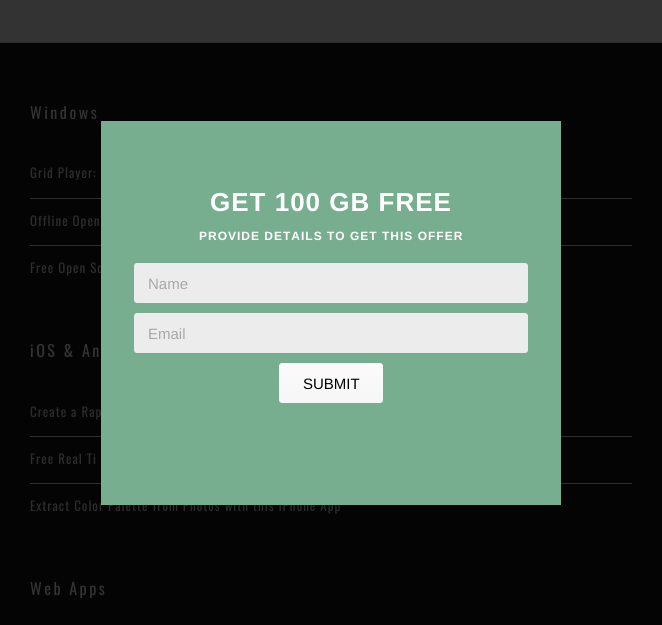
import math
import cairo

surface = cairo.ImageSurface(cairo.Format.RGB24, 662, 625)
ctx = cairo.Context(surface)
options = cairo.FontOptions()
options.set_hint_metrics(cairo.HintMetrics.OFF)
options.set_hint_style(cairo.HintStyle.NONE)
ctx.set_font_options(options)
ctx.set_miter_limit(4)


def ink(r, g, b):
    ctx.set_source_rgb(r / 255, g / 255, b / 255)


def write(x, y, s, family, size, color, bold=False, italic=False):
    ctx.select_font_face(family, cairo.FontSlant.ITALIC if italic else cairo.FontSlant.NORMAL, cairo.FontWeight.BOLD if bold else cairo.FontWeight.NORMAL)
    ctx.set_font_size(size)
    ink(*color)
    ctx.move_to(x, y)
    ctx.show_text(s)


def write_spaced(x, y, s, letter, word):
    ctx.move_to(x, y)
    for ch in s:
        ctx.show_text(ch)
        ctx.rel_move_to(letter + word * (ch == ' '), 0)


def block(x, y, w, h, *color):
    ink(*color)
    ctx.rectangle(x, y, w, h)
    ctx.fill()


def round_path(x, y, w, h, r):
    ctx.new_sub_path()
    for i, (u, v) in enumerate([(x + w - r, y + h - r), (x + r, y + h - r), (x + r, y + r), (x + w - r, y + r)]):
        ctx.arc(u, v, r, i * math.pi / 2, (i + 1) * math.pi / 2)
    ctx.close_path()


s1 = dict(family="Liberation Sans", size=15, color=(168, 168, 168))
s2 = dict(family="Liberation Sans", size=15, color=(5, 0, 0))

ink(51, 51, 51)
ctx.paint()
block(0, 43, 662, 582, 4, 4, 4)
block(0, 42, 662, 1, 46, 46, 46)
ctx.select_font_face("Oswald")
ctx.set_font_size(16)
ink(51, 51, 51)
write_spaced(30, 119, "Windows", 2.5, 0)
block(30, 198, 602, 1, 46, 46, 46)
ctx.set_font_size(13)
ink(44, 44, 44)
write_spaced(30, 178, "Grid Player:", 1, 0)
block(30, 245, 602, 1, 46, 46, 46)
ink(44, 44, 44)
write_spaced(30, 226, "Offline Open", 1, 0)
write_spaced(30, 273, "Free Open So", 1, 0)
ctx.set_font_size(16)
ink(51, 51, 51)
write_spaced(30, 357, "iOS & An", 2.5, 0)
block(30, 436, 602, 1, 46, 46, 46)
ctx.set_font_size(13)
ink(44, 44, 44)
write_spaced(30, 417, "Create a Rap", 1, 0)
block(30, 483, 602, 1, 46, 46, 46)
ink(44, 44, 44)
write_spaced(30, 464, "Free Real Ti", 1, 0)
write_spaced(30, 511, "Extract Color Palette from Photos with this iPhone App", 1, 0)
ctx.set_font_size(16)
ink(51, 51, 51)
write_spaced(30, 595, "Web Apps", 2.5, 0)
block(101, 121, 460, 384, 120, 174, 144)
ctx.select_font_face("Liberation Sans", cairo.FontSlant.NORMAL, cairo.FontWeight.BOLD)
ctx.set_font_size(26)
ink(255, 255, 255)
write_spaced(210, 211, "GET 100 GB FREE", 1, 0)
ctx.set_font_size(12)
write_spaced(199, 240, "PROVIDE DETAILS TO GET THIS OFFER", 1, 0)
ink(236, 236, 236)
round_path(134, 263, 394, 40, 3)
ctx.fill()
write(148, 289, "Name", **s1)
ink(236, 236, 236)
round_path(134, 313, 394, 40, 3)
ctx.fill()
write(148, 339, "Email", **s1)
gradient = cairo.LinearGradient(331, 363, 331, 403)
gradient.add_color_stop_rgba(0, 0.984, 0.984, 0.984, 1)
gradient.add_color_stop_rgba(1, 0.965, 0.965, 0.965, 1)
ctx.set_source(gradient)
round_path(279, 363, 104, 40, 3)
ctx.fill()
write(303, 389, "SUBMIT", **s2)
surface.write_to_png("screenshot.png")
